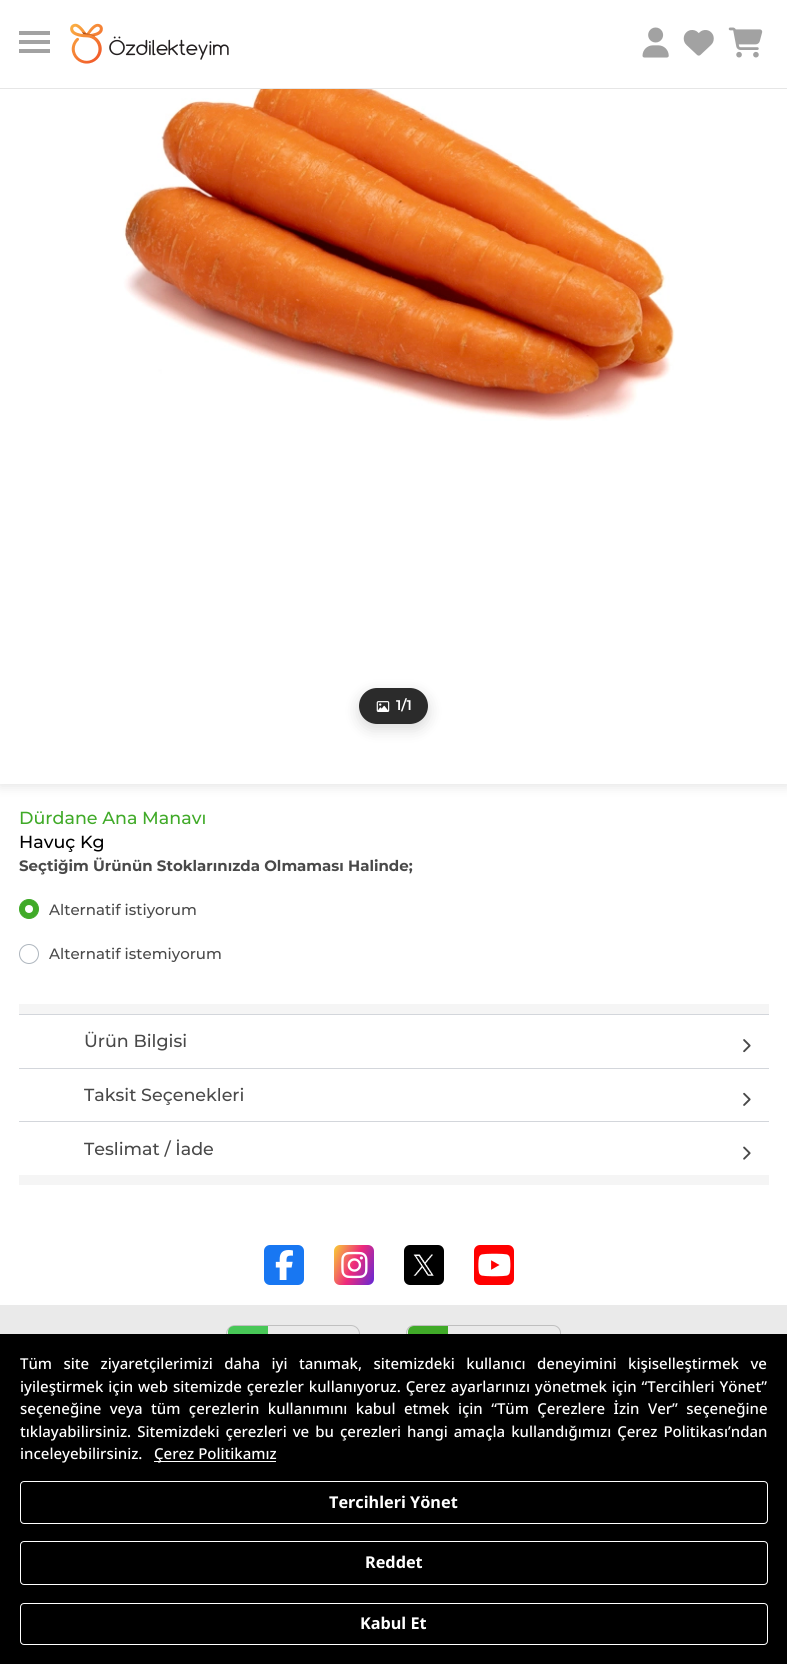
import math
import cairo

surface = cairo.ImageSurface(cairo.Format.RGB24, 787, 1664)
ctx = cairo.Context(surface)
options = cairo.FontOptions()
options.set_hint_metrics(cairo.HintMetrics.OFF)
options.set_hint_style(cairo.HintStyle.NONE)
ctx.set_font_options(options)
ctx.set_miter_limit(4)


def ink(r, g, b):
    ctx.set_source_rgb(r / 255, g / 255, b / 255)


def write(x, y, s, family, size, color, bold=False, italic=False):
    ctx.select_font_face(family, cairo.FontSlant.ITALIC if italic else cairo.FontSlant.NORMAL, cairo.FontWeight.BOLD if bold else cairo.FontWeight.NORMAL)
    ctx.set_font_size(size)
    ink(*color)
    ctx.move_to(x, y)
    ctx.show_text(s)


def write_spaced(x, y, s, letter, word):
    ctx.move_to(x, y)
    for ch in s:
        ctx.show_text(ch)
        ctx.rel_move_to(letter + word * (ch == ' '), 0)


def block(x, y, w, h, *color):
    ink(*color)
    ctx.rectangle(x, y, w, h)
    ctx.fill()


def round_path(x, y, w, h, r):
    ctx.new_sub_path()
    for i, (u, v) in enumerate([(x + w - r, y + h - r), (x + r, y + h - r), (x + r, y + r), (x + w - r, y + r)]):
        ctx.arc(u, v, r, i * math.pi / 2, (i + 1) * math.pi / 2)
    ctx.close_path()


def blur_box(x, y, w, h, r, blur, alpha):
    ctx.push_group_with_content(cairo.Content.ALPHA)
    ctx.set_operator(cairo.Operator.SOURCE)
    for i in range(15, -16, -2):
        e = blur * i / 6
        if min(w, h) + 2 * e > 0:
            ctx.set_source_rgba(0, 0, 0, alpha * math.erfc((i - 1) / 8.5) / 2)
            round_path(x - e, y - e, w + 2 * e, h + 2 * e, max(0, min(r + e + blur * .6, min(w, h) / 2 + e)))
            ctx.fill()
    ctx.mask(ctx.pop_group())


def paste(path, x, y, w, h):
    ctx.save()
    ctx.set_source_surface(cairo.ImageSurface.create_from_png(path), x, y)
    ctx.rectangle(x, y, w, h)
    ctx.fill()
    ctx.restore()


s1 = dict(family="Montserrat SemiBold", size=14, color=(255, 255, 255))
s2 = dict(family="Montserrat Medium", size=17.5, color=(64, 170, 40))
s3 = dict(family="Montserrat Medium", size=17.5, color=(0, 0, 0))
s4 = dict(family="Montserrat", size=15, color=(73, 73, 73), bold=True)
s5 = dict(family="Montserrat Medium", size=15, color=(73, 73, 73))
s6 = dict(family="Montserrat Medium", size=17.5, color=(73, 73, 73))
s7 = dict(family="Noto Sans Medium", size=15, color=(255, 255, 255))
s8 = dict(family="Noto Sans", size=16.25, color=(255, 255, 255), bold=True)

ink(255, 255, 255)
ctx.paint()
ink(0, 0, 0)
blur_box(0, -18, 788, 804, 0, 6, 0.11)
block(0, 0, 50, 88, 255, 255, 255)
block(0, 88, 787, 1, 230, 230, 230)
block(19, 40, 32, 4, 162, 162, 162)
block(19, 31, 32, 4, 162, 162, 162)
block(19, 49, 32, 4, 162, 162, 162)
block(50, 0, 737, 88, 255, 255, 255)
paste("pic1.png", 70, 23, 159, 41)
paste("pic2.png", 642, 27, 27, 31)
paste("pic3.png", 683, 30, 31, 26)
paste("pic4.png", 728, 27, 35, 31)
block(0, 89, 787, 695, 255, 255, 255)
paste("pic5.png", 123, 89, 552, 332)
ctx.save()
ctx.set_fill_rule(cairo.FillRule.EVEN_ODD)
ctx.new_path()
ctx.move_to(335, 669)
ctx.line_to(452, 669)
ctx.line_to(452, 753)
ctx.line_to(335, 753)
ctx.close_path()
ctx.move_to(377, 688)
ctx.line_to(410, 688)
ctx.curve_to(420, 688, 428, 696, 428, 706)
ctx.curve_to(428, 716, 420, 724, 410, 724)
ctx.line_to(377, 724)
ctx.curve_to(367, 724, 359, 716, 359, 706)
ctx.curve_to(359, 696, 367, 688, 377, 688)
ctx.close_path()
ctx.clip()
ink(0, 0, 0)
blur_box(359, 693, 69, 36, 18, 7.5, 0.15)
ctx.restore()
ctx.set_source_rgba(0.129, 0.129, 0.129, 0.95)
round_path(359, 688, 69, 36, 18)
ctx.fill()
paste("pic6.png", 376, 701, 14, 11)
write(396, 710, "1/1", **s1)
write(19, 824, "Dürdane Ana Manavı", **s2)
write(19, 848, "Havuç Kg", **s3)
write(19, 871, "Seçtiğim Ürünün Stoklarınızda Olmaması Halinde;", **s4)
ink(64, 170, 40)
ctx.new_path()
ctx.arc(29, 909, 9.5, 0, 2 * math.pi)
ctx.fill_preserve()
ctx.set_line_width(1)
ctx.stroke()
write(49, 915, "Alternatif istiyorum", **s5)
ink(255, 255, 255)
ctx.new_path()
ctx.arc(29, 909, 4, 0, 2 * math.pi)
ctx.fill()
ctx.arc(29, 954, 9.5, 0, 2 * math.pi)
ink(173, 181, 189)
ctx.stroke()
write(49, 959, "Alternatif istemiyorum", **s5)
block(19, 1004, 750, 10, 245, 245, 245)
block(19, 1175, 750, 10, 245, 245, 245)
block(19, 1014, 750, 1, 211, 214, 219)
write(84, 1047, "Ürün Bilgisi", **s6)
paste("pic7.png", 743, 1039, 8, 14)
block(19, 1068, 750, 1, 211, 214, 219)
write(84, 1101, "Taksit Seçenekleri", **s6)
paste("pic8.png", 743, 1092, 8, 14)
block(19, 1121, 750, 1, 211, 214, 219)
write(84, 1155, "Teslimat / İade", **s6)
paste("pic9.png", 743, 1146, 8, 14)
ink(24, 119, 242)
round_path(264, 1245, 40, 40, 6)
ctx.fill()
paste("pic10.png", 275, 1250, 18, 30)
gradient = cairo.LinearGradient(330, 1254, 378, 1276)
gradient.add_color_stop_rgba(0, 0.976, 0.808, 0.204, 1)
gradient.add_color_stop_rgba(0.5, 0.933, 0.165, 0.482, 1)
gradient.add_color_stop_rgba(1, 0.384, 0.157, 0.843, 1)
ctx.set_source(gradient)
round_path(334, 1245, 40, 40, 6)
ctx.fill()
paste("pic11.png", 341, 1251, 27, 28)
ink(0, 0, 0)
round_path(404, 1245, 40, 40, 6)
ctx.fill()
paste("pic12.png", 413, 1254, 21, 22)
ink(255, 0, 0)
round_path(474, 1245, 40, 40, 6)
ctx.fill()
paste("pic13.png", 478, 1253, 33, 24)
block(0, 1305, 787, 29, 234, 234, 234)
round_path(226.5, 1325.5, 133, 42, 8.5)
ink(192, 192, 192)
ctx.stroke()
ink(72, 199, 87)
ctx.new_path()
ctx.move_to(234, 1326)
ctx.line_to(268, 1326)
ctx.line_to(268, 1366)
ctx.line_to(234, 1366)
ctx.curve_to(230.5, 1366, 228, 1363.5, 228, 1360)
ctx.line_to(228, 1332)
ctx.curve_to(228, 1328.5, 230.5, 1326, 234, 1326)
ctx.close_path()
ctx.fill()
round_path(406.5, 1325.5, 154, 42, 7.5)
ink(191, 191, 191)
ctx.stroke()
ink(64, 170, 40)
ctx.new_path()
ctx.move_to(414, 1326)
ctx.line_to(448, 1326)
ctx.line_to(448, 1366)
ctx.line_to(414, 1366)
ctx.curve_to(410.5, 1366, 408, 1363.5, 408, 1360)
ctx.line_to(408, 1332)
ctx.curve_to(408, 1328.5, 410.5, 1326, 414, 1326)
ctx.close_path()
ctx.fill()
block(0, 1334, 787, 330, 0, 0, 0)
ctx.select_font_face("Noto Sans Medium")
ctx.set_font_size(15)
ink(255, 255, 255)
write_spaced(20, 1369, "Tüm site ziyaretçilerimizi daha iyi tanımak, sitemizdeki kullanıcı deneyimini kişiselleştirmek ve", 0, 7.5)
write_spaced(20, 1392, "iyileştirmek için web sitemizde çerezler kullanıyoruz. Çerez ayarlarınızı yönetmek için “Tercihleri Yönet”", 0, 1)
write_spaced(20, 1414, "seçeneğine veya tüm çerezlerin kullanımını kabul etmek için “Tüm Çerezlere İzin Ver” seçeneğine", 0, 4.5)
write_spaced(20, 1437, "tıklayabilirsiniz. Sitemizdeki çerezleri ve bu çerezleri hangi amaçla kullandığımızı Çerez Politikası’ndan", 0, 2.1)
write(20, 1459, "inceleyebilirsiniz.", **s7)
block(154, 1461, 122, 1, 255, 255, 255)
write(154, 1459, "Çerez Politikamız", **s7)
round_path(20.5, 1481.5, 747, 42, 3.5)
ctx.stroke()
write(329, 1508, "Tercihleri Yönet", **s8)
round_path(20.5, 1541.5, 747, 43, 3.5)
ctx.stroke()
write(365, 1568, "Reddet", **s8)
round_path(20.5, 1603.5, 747, 41, 3.5)
ctx.stroke()
write(360, 1629, "Kabul Et", **s8)
surface.write_to_png("screenshot.png")
